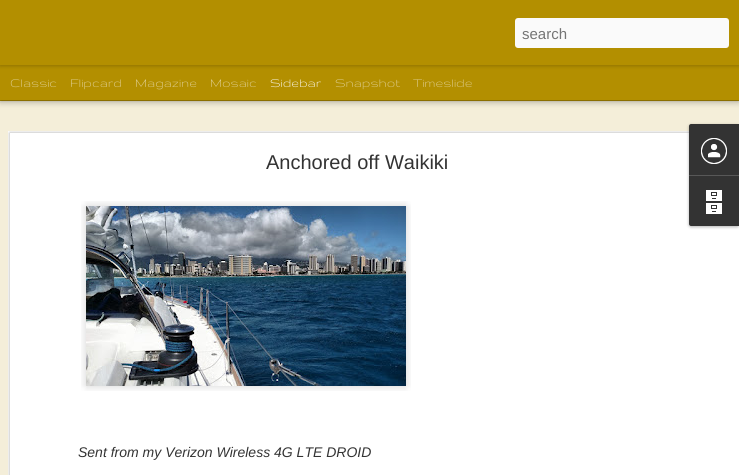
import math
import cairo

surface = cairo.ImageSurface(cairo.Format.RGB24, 739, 475)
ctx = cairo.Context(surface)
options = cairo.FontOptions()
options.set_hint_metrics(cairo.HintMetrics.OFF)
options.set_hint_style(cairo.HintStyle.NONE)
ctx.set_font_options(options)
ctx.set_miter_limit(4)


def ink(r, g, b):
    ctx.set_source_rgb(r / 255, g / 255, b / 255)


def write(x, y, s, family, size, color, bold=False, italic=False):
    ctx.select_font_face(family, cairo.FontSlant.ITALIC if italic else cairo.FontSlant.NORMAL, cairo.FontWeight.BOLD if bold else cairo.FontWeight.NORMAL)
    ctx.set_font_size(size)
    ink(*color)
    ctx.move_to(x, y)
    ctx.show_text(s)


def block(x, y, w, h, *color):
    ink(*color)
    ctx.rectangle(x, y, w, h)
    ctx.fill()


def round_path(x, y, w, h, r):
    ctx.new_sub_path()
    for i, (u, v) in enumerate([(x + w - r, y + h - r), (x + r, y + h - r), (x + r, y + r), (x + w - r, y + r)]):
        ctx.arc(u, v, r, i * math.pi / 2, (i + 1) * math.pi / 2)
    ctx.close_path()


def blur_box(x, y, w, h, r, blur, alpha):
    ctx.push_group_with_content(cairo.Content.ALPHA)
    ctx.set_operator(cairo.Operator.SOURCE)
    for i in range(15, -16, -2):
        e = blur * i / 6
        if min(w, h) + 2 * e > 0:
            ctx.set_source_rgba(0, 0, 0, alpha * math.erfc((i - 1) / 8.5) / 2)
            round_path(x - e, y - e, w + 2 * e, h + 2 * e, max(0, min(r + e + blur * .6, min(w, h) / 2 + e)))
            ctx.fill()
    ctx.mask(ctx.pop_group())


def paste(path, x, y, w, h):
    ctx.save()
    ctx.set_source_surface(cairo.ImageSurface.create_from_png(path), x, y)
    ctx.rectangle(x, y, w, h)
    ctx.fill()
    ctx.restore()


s1 = dict(family="Liberation Sans", size=15, color=(117, 117, 117))
s2 = dict(family="Gruppo", size=14, color=(225, 210, 153))
s3 = dict(family="Gruppo", size=14, color=(255, 255, 255))
s4 = dict(family="Liberation Sans", size=20, color=(51, 51, 51))
s5 = dict(family="Liberation Sans", size=14, color=(51, 51, 51), italic=True)

ink(179, 143, 0)
ctx.paint()
block(0, 101, 739, 374, 244, 238, 217)
ink(0, 0, 0)
blur_box(0, 65, 739, 35, 0, 4, 0.5)
block(0, 65, 739, 35, 179, 143, 0)
ink(0, 0, 0)
blur_box(0, 0, 739, 65, 0, 2.5, 0.3)
block(0, 0, 739, 65, 179, 143, 0)
ink(250, 250, 250)
round_path(515, 18, 214, 30, 3)
ctx.fill()
write(522, 39, "search", **s1)
write(10, 87, "Classic", **s2)
write(70, 87, "Flipcard", **s2)
write(135, 87, "Magazine", **s2)
write(210, 87, "Mosaic", **s2)
write(270, 87, "Sidebar", **s3)
write(335, 87, "Snapshot", **s2)
write(413, 87, "Timeslide", **s2)
block(8, 131, 731, 344, 255, 255, 255)
paste("pic1.png", 8, 131, 681, 344)
write(266, 169, "Anchored off Waikiki", **s4)
paste("pic2.png", 81, 201, 330, 190)
write(78, 457, "Sent from my Verizon Wireless 4G LTE DROID", **s5)
ink(0, 0, 0)
blur_box(689, 125, 50, 102, 2, 1.5, 0.3)
ink(51, 51, 51)
ctx.new_path()
ctx.move_to(691, 124)
ctx.line_to(739, 124)
ctx.line_to(739, 175)
ctx.line_to(689, 175)
ctx.line_to(689, 126)
ctx.curve_to(689, 125, 690, 124, 691, 124)
ctx.close_path()
ctx.fill()
paste("pic3.png", 701, 138, 26, 26)
ctx.new_path()
ctx.move_to(689, 175)
ctx.line_to(739, 175)
ctx.line_to(739, 226)
ctx.line_to(691, 226)
ctx.curve_to(690, 226, 689, 225, 689, 224)
ctx.close_path()
ctx.fill()
block(689, 175, 50, 1, 88, 88, 88)
paste("pic4.png", 706, 190, 16, 24)
surface.write_to_png("screenshot.png")
